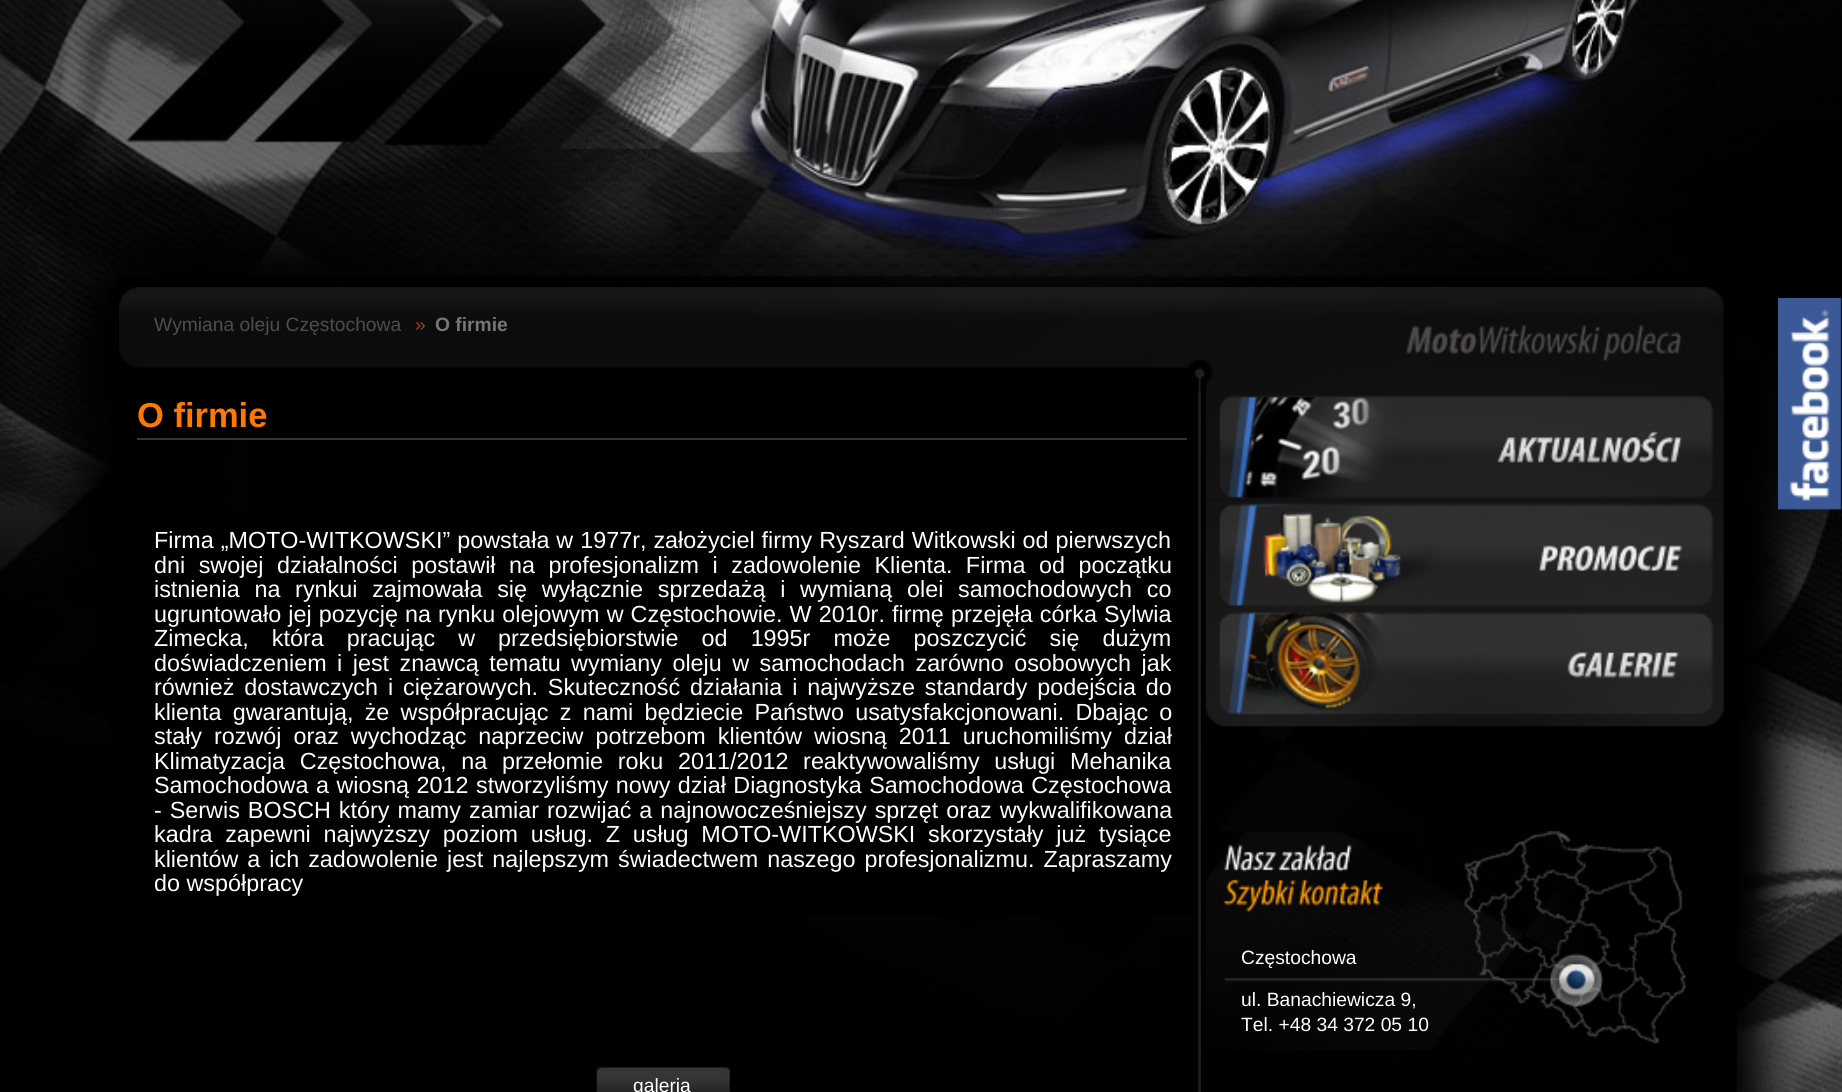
import math
import cairo

surface = cairo.ImageSurface(cairo.Format.RGB24, 1842, 1092)
ctx = cairo.Context(surface)
options = cairo.FontOptions()
options.set_hint_metrics(cairo.HintMetrics.OFF)
options.set_hint_style(cairo.HintStyle.NONE)
ctx.set_font_options(options)
ctx.set_miter_limit(4)


def ink(r, g, b):
    ctx.set_source_rgb(r / 255, g / 255, b / 255)


def write(x, y, s, family, size, color, bold=False, italic=False):
    ctx.select_font_face(family, cairo.FontSlant.ITALIC if italic else cairo.FontSlant.NORMAL, cairo.FontWeight.BOLD if bold else cairo.FontWeight.NORMAL)
    ctx.set_font_size(size)
    ink(*color)
    ctx.move_to(x, y)
    ctx.show_text(s)


def write_spaced(x, y, s, letter, word):
    ctx.move_to(x, y)
    for ch in s:
        ctx.show_text(ch)
        ctx.rel_move_to(letter + word * (ch == ' '), 0)


def block(x, y, w, h, *color):
    ink(*color)
    ctx.rectangle(x, y, w, h)
    ctx.fill()


def paste(path, x, y, w, h):
    ctx.save()
    ctx.set_source_surface(cairo.ImageSurface.create_from_png(path), x, y)
    ctx.rectangle(x, y, w, h)
    ctx.fill()
    ctx.restore()


s1 = dict(family="Liberation Sans", size=19.25, color=(77, 77, 77))
s2 = dict(family="Liberation Sans", size=19.25, color=(153, 66, 34))
s3 = dict(family="Liberation Sans", size=19.25, color=(119, 118, 118), bold=True)
s4 = dict(family="Liberation Sans", size=34.5, color=(255, 121, 0), bold=True)
s5 = dict(family="Liberation Sans", size=23.35, color=(255, 255, 255))
s6 = dict(family="Liberation Sans", size=19.25, color=(255, 255, 255))

ink(255, 255, 255)
ctx.paint()
paste("pic1.png", 0, 721, 1842, 371)
paste("pic2.png", 0, 0, 1842, 721)
paste("pic3.png", 119, 287, 1605, 105)
write(154, 331, "Wymiana oleju Częstochowa", **s1)
write(415, 331, "»", **s2)
write(435, 331, "O firmie", **s3)
block(247, 392, 959, 524, 0, 0, 0)
block(1198, 392, 3, 700, 28, 28, 28)
block(137, 438, 1050, 2, 51, 51, 51)
write(137, 427, "O firmie", **s4)
ctx.select_font_face("Liberation Sans")
ctx.set_font_size(23.35)
ink(255, 255, 255)
write_spaced(154, 548, "Firma „MOTO-WITKOWSKI” powstała w 1977r, założyciel firmy Ryszard Witkowski od pierwszych", 0, 0.5)
write_spaced(154, 573, "dni swojej działalności postawił na profesjonalizm i zadowolenie Klienta. Firma od początku", 0, 7)
write_spaced(154, 597, "istnienia na rynkui zajmowała się wyłącznie sprzedażą i wymianą olei samochodowych co", 0, 8.25)
write_spaced(154, 622, "ugruntowało jej pozycję na rynku olejowym w Częstochowie. W 2010r. firmę przejęła córka Sylwia", 0, 0.6)
write_spaced(154, 646, "Zimecka, która pracując w przedsiębiorstwie od 1995r może poszczycić się dużym", 0, 16.6)
write_spaced(154, 671, "doświadczeniem i jest znawcą tematu wymiany oleju w samochodach zarówno osobowych jak", 0, 4)
write_spaced(154, 695, "również dostawczych i ciężarowych. Skuteczność działania i najwyższe standardy podejścia do", 0, 3.4)
write_spaced(154, 720, "klienta gwarantują, że współpracując z nami będziecie Państwo usatysfakcjonowani. Dbając o", 0, 4.75)
write_spaced(154, 744, "stały rozwój oraz wychodząc naprzeciw potrzebom klientów wiosną 2011 uruchomiliśmy dział", 0, 5.5)
write_spaced(154, 769, "Klimatyzacja Częstochowa, na przełomie roku 2011/2012 reaktywowaliśmy usługi Mehanika", 0, 8.25)
write_spaced(154, 793, "Samochodowa a wiosną 2012 stworzyliśmy nowy dział Diagnostyka Samochodowa Częstochowa", 0, 1)
write_spaced(154, 818, "- Serwis BOSCH który mamy zamiar rozwijać a najnowocześniejszy sprzęt oraz wykwalifikowana", 0, 1.5)
write_spaced(154, 842, "kadra zapewni najwyższy poziom usług. Z usług MOTO-WITKOWSKI skorzystały już tysiące", 0, 6.25)
write_spaced(154, 867, "klientów a ich zadowolenie jest najlepszym świadectwem naszego profesjonalizmu. Zapraszamy", 0, 2.5)
write(154, 891, "do współpracy", **s5)
paste("pic4.png", 596, 1067, 134, 25)
write(633, 1092, "galeria", **s6)
paste("pic5.png", 1205, 392, 519, 109)
paste("pic6.png", 1205, 500, 519, 109)
paste("pic7.png", 1205, 609, 519, 118)
block(1206, 831, 320, 113, 0, 0, 0)
paste("pic8.png", 1206, 831, 480, 219)
write(1241, 964, "Częstochowa", **s6)
write(1241, 1006, "ul. Banachiewicza 9,", **s6)
write(1241, 1031, "Tel. +48 34 372 05 10", **s6)
paste("pic9.png", 1778, 298, 64, 212)
surface.write_to_png("screenshot.png")
